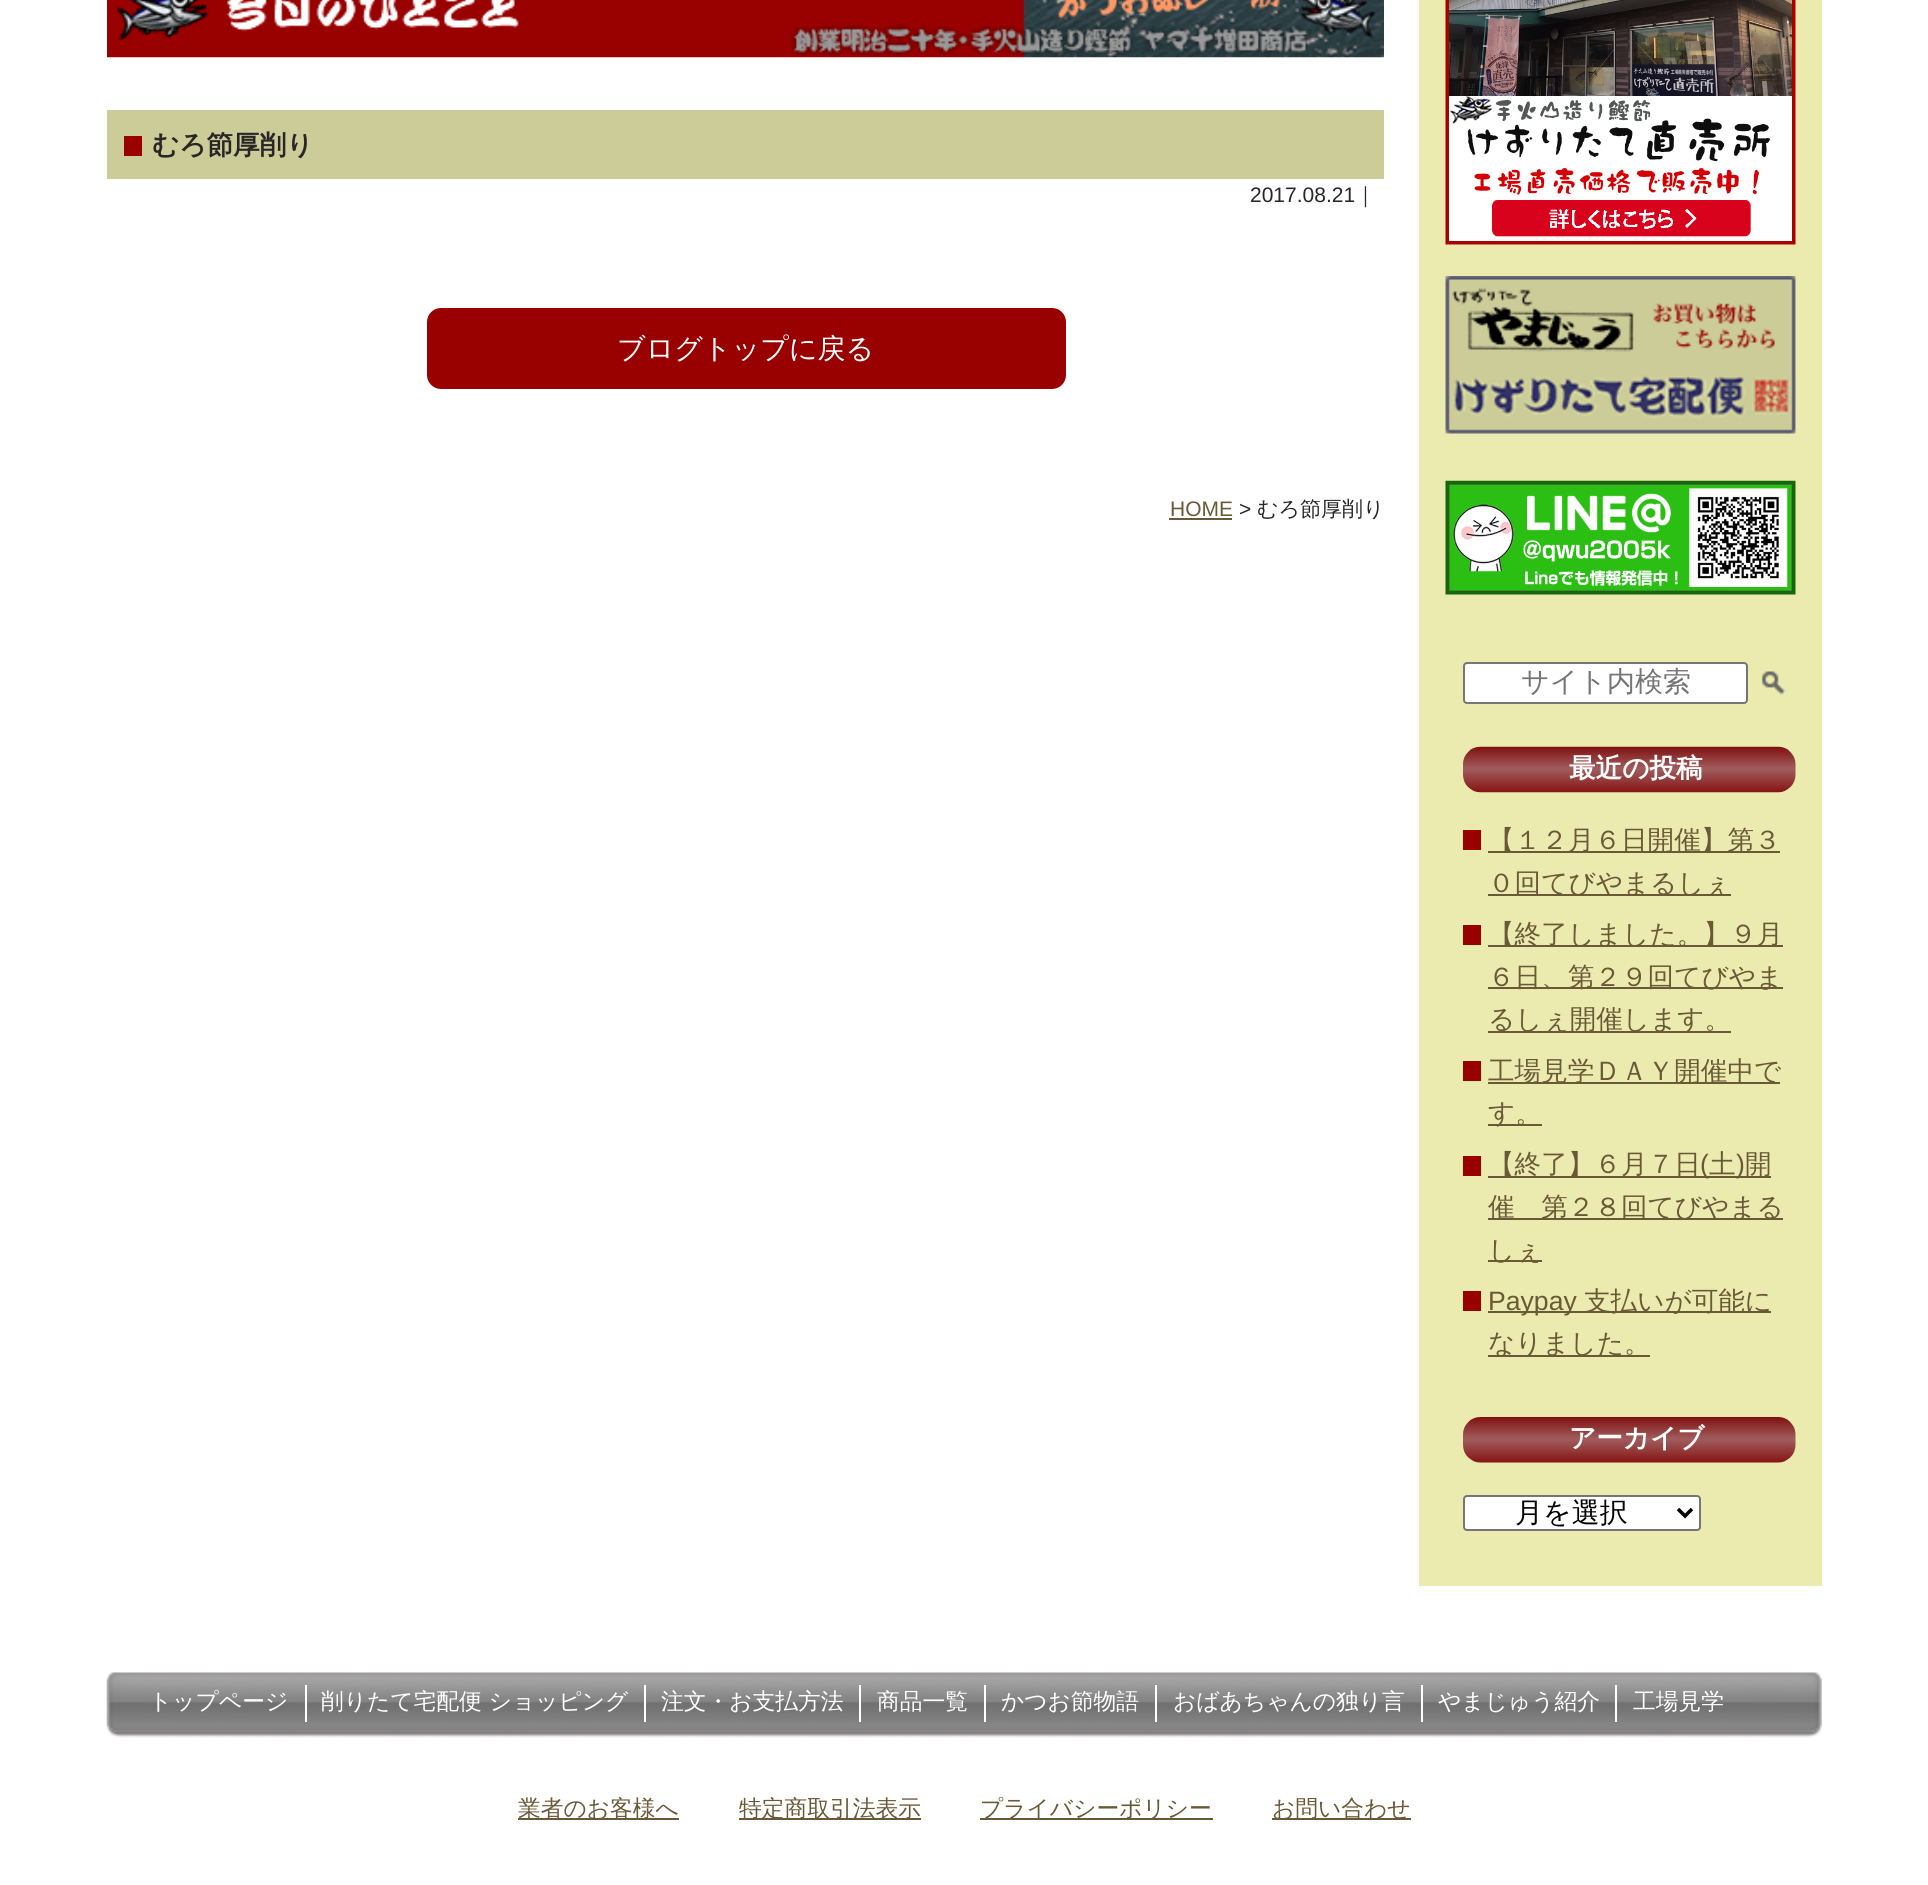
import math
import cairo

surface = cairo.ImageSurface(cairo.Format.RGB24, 1928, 1885)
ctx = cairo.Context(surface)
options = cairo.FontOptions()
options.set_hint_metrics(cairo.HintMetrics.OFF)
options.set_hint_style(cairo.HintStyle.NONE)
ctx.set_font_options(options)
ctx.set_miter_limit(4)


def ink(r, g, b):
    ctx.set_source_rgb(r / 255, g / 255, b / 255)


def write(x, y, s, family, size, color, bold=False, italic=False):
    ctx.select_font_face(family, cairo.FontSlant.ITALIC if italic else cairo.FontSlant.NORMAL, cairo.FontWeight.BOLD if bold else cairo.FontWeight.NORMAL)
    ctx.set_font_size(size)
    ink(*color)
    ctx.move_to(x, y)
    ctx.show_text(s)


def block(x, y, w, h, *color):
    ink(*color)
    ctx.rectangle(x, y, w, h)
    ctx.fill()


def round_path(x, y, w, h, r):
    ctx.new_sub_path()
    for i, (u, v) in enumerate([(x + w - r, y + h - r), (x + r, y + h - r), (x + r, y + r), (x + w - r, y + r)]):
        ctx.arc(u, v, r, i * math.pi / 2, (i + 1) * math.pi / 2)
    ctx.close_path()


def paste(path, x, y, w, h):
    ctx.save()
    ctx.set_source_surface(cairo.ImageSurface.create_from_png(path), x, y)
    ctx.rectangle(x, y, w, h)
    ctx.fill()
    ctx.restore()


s1 = dict(family="WenQuanYi Zen Hei", size=26.6, color=(40, 39, 39), bold=True)
s2 = dict(family="Liberation Sans", size=21, color=(40, 39, 39))
s3 = dict(family="WenQuanYi Zen Hei Medium", size=21, color=(40, 39, 39))
s4 = dict(family="WenQuanYi Zen Hei Medium", size=28, color=(255, 255, 255))
s5 = dict(family="Liberation Sans", size=21, color=(106, 89, 55))
s6 = dict(family="WenQuanYi Zen Hei Medium", size=28, color=(117, 117, 117))
s7 = dict(family="WenQuanYi Zen Hei", size=26.6, color=(255, 255, 255), bold=True)
s8 = dict(family="WenQuanYi Zen Hei Medium", size=26.6, color=(106, 89, 55))
s9 = dict(family="Liberation Sans", size=26.6, color=(106, 89, 55))
s10 = dict(family="WenQuanYi Zen Hei Medium", size=28, color=(0, 0, 0))
s11 = dict(family="WenQuanYi Zen Hei Medium", size=22.75, color=(255, 255, 255))
s12 = dict(family="WenQuanYi Zen Hei Medium", size=22.75, color=(106, 89, 55))

ink(255, 255, 255)
ctx.paint()
paste("pic1.png", 107, 0, 1277, 58)
block(107, 110, 1277, 69, 204, 204, 152)
block(124, 136, 18, 20, 153, 0, 0)
write(152, 154, "むろ節厚削り", **s1)
write(1250, 202, "2017.08.21", **s2)
write(1355, 202, "｜", **s3)
ink(153, 0, 0)
round_path(427, 308, 639, 81, 14)
ctx.fill()
write(617, 358, "ブログトップに戻る", **s4)
write(1170, 516, "HOME", **s5)
block(1169, 518, 63, 2, 106, 89, 55)
write(1239, 516, ">", **s2)
write(1257, 516, "むろ節厚削り", **s3)
block(1419, 0, 403, 1586, 235, 235, 176)
paste("pic2.png", 1445, 0, 351, 245)
paste("pic3.png", 1445, 276, 351, 158)
paste("pic4.png", 1445, 480, 351, 115)
ink(255, 255, 255)
round_path(1464, 663, 283, 40, 3)
ctx.fill_preserve()
ink(118, 118, 118)
ctx.stroke()
write(1521, 691, "サイト内検索", **s6)
paste("pic5.png", 1761, 671, 25, 24)
paste("pic6.png", 1462, 746, 334, 47)
write(1569, 777, "最近の投稿", **s7)
block(1463, 830, 18, 20, 153, 0, 0)
block(1488, 851, 292, 2, 106, 89, 55)
write(1488, 849, "【１２月６日開催】第３", **s8)
block(1488, 894, 243, 2, 106, 89, 55)
write(1488, 892, "０回てびやまるしぇ", **s8)
block(1463, 925, 18, 20, 153, 0, 0)
block(1488, 945, 295, 2, 106, 89, 55)
write(1488, 943, "【終了しました。】９月", **s8)
block(1488, 987, 295, 2, 106, 89, 55)
write(1488, 986, "６日、第２９回てびやま", **s8)
block(1488, 1031, 243, 2, 106, 89, 55)
write(1488, 1028, "るしぇ開催します。", **s8)
block(1463, 1061, 18, 20, 153, 0, 0)
block(1488, 1082, 292, 2, 106, 89, 55)
write(1488, 1080, "工場見学ＤＡＹ開催中で", **s8)
block(1488, 1124, 54, 2, 106, 89, 55)
write(1488, 1122, "す。", **s8)
block(1463, 1156, 18, 20, 153, 0, 0)
block(1488, 1176, 283, 2, 106, 89, 55)
write(1488, 1173, "【終了】６月７日", **s8)
write(1700, 1173, "(", **s9)
write(1709, 1173, "土", **s8)
write(1736, 1173, ")", **s9)
write(1745, 1173, "開", **s8)
block(1488, 1218, 295, 2, 106, 89, 55)
write(1488, 1216, "催　第２８回てびやまる", **s8)
block(1488, 1260, 54, 2, 106, 89, 55)
write(1488, 1259, "しぇ", **s8)
block(1463, 1291, 18, 20, 153, 0, 0)
block(1488, 1311, 283, 2, 106, 89, 55)
write(1488, 1310, "Paypay", **s9)
write(1584, 1310, "支払いが可能に", **s8)
block(1488, 1355, 162, 2, 106, 89, 55)
write(1488, 1352, "なりました。", **s8)
paste("pic7.png", 1463, 1417, 333, 46)
write(1569, 1447, "アーカイブ", **s7)
round_path(1464, 1496, 236, 34, 3)
ctx.fill_preserve()
ink(118, 118, 118)
ctx.stroke()
ctx.new_path()
ctx.move_to(1678, 1509)
ctx.line_to(1685, 1516)
ctx.line_to(1692, 1509)
ink(0, 0, 0)
ctx.set_line_width(3.5)
ctx.stroke()
write(1515, 1522, "月を選択", **s10)
paste("pic8.png", 106, 1672, 1716, 66)
block(305, 1685, 2, 37, 255, 255, 255)
write(149, 1709, "トップページ", **s11)
block(644, 1685, 2, 37, 255, 255, 255)
write(321, 1709, "削りたて宅配便 ショッピング", **s11)
block(859, 1685, 2, 37, 255, 255, 255)
write(661, 1709, "注文・お支払方法", **s11)
block(984, 1685, 2, 37, 255, 255, 255)
write(877, 1709, "商品一覧", **s11)
block(1155, 1685, 2, 37, 255, 255, 255)
write(1001, 1709, "かつお節物語", **s11)
block(1421, 1685, 2, 37, 255, 255, 255)
write(1173, 1709, "おばあちゃんの独り言", **s11)
block(1615, 1685, 2, 37, 255, 255, 255)
write(1438, 1709, "やまじゅう紹介", **s11)
write(1633, 1709, "工場見学", **s11)
block(518, 1818, 161, 2, 106, 89, 55)
write(518, 1816, "業者のお客様へ", **s12)
block(739, 1818, 182, 2, 106, 89, 55)
write(739, 1816, "特定商取引法表示", **s12)
block(980, 1818, 233, 2, 106, 89, 55)
write(980, 1816, "プライバシーポリシー", **s12)
block(1272, 1818, 139, 2, 106, 89, 55)
write(1272, 1816, "お問い合わせ", **s12)
surface.write_to_png("screenshot.png")
